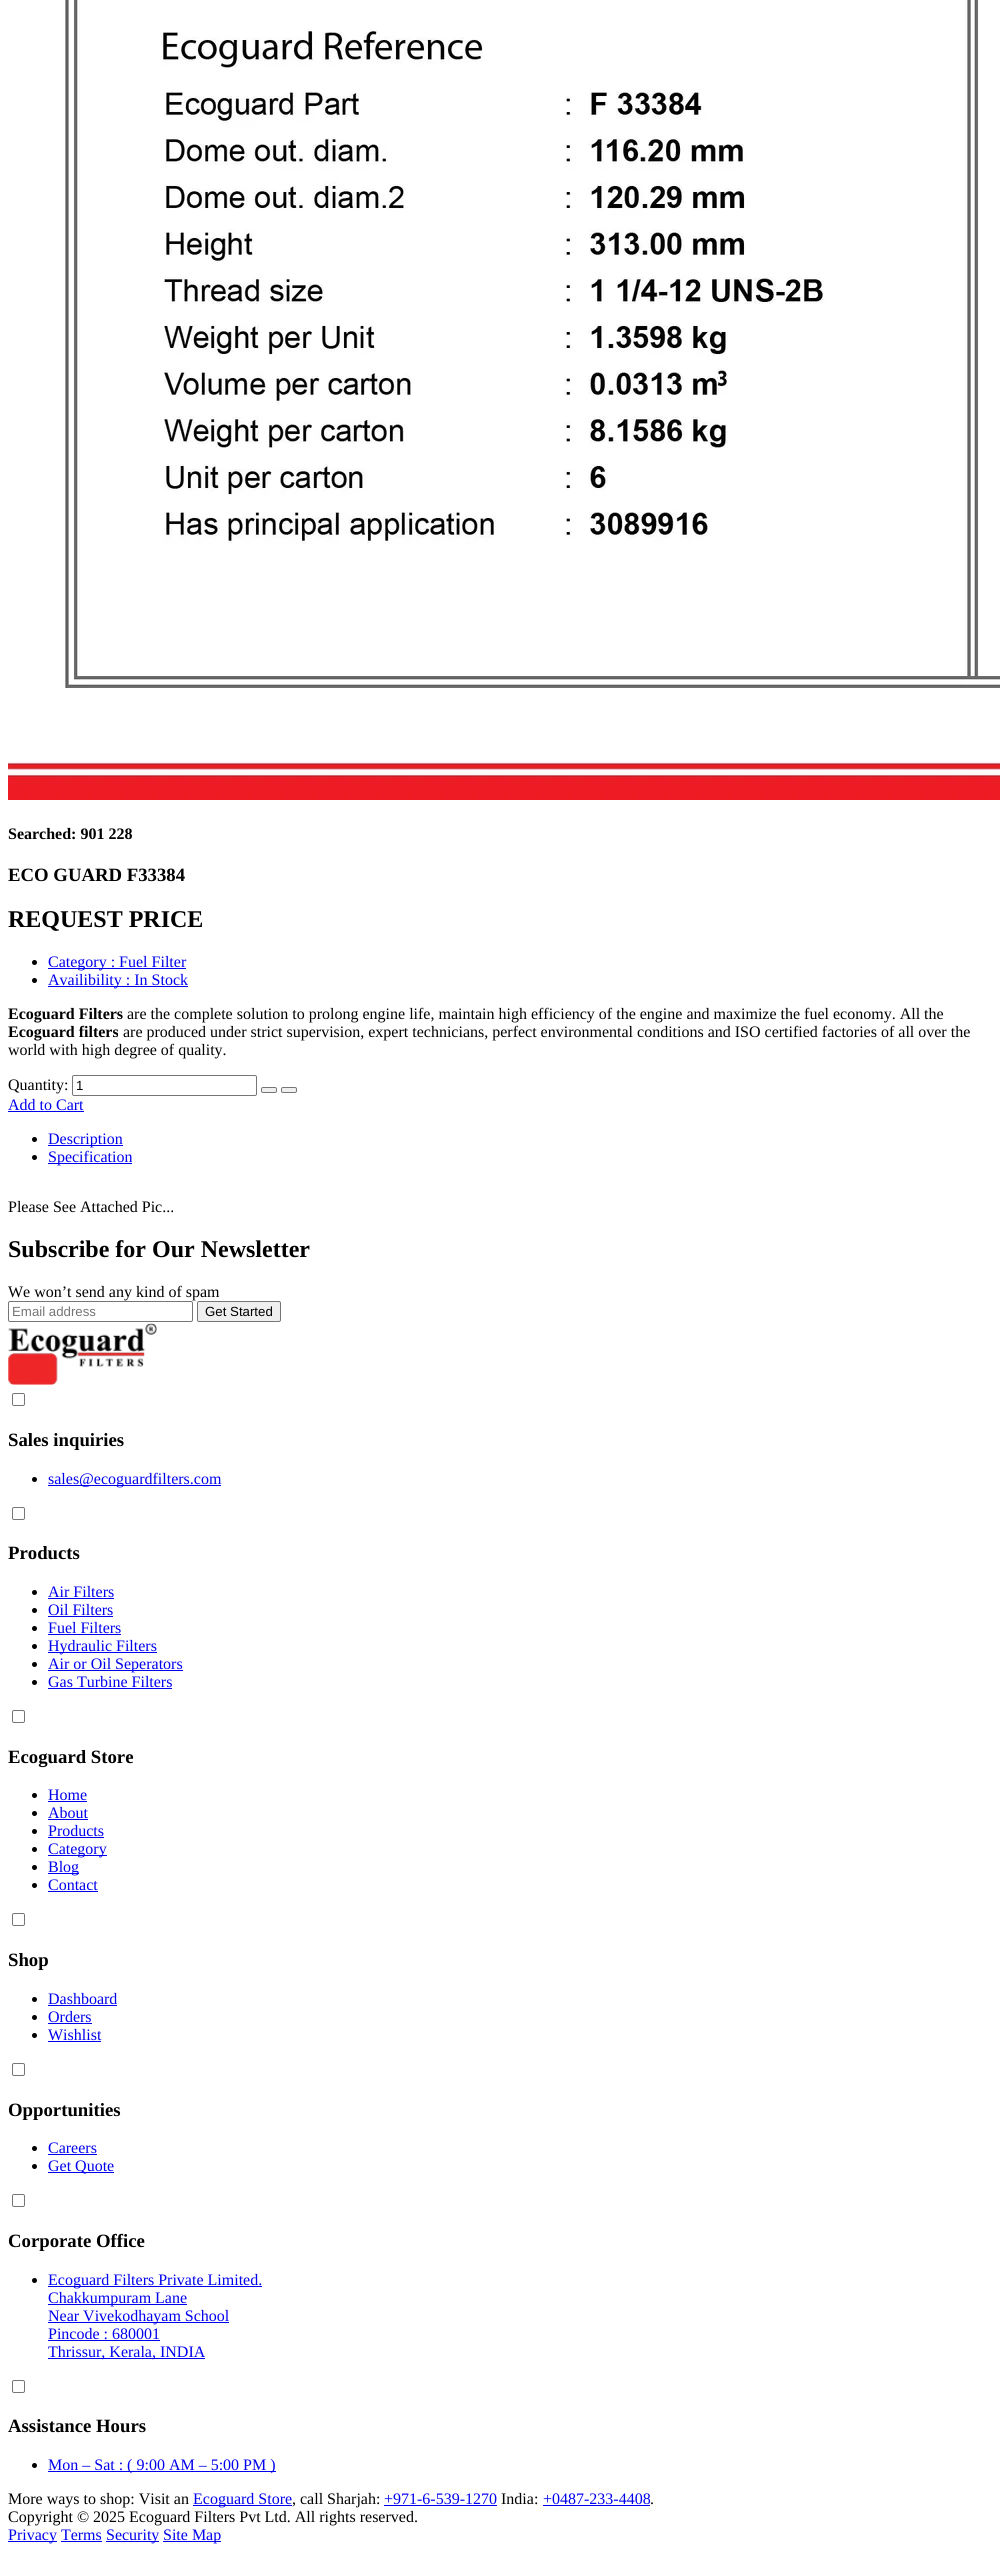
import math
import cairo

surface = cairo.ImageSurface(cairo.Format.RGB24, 1000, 2552)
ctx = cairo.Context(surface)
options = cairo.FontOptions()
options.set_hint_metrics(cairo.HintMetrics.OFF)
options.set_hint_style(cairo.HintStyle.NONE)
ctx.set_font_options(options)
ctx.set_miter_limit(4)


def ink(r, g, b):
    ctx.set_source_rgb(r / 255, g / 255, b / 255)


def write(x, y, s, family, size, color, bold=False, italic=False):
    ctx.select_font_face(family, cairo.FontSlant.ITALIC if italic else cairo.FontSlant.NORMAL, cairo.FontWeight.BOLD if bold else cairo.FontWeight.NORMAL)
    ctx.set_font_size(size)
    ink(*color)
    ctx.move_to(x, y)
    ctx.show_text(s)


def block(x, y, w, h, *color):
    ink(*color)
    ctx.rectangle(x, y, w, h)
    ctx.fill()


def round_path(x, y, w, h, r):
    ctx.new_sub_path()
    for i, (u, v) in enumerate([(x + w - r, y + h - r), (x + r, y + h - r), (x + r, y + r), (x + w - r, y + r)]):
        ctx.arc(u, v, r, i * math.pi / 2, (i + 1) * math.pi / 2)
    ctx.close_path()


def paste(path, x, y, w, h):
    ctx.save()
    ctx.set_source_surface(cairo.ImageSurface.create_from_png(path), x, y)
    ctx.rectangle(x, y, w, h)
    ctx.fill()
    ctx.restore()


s1 = dict(family="Liberation Serif", size=16, color=(0, 0, 0), bold=True)
s2 = dict(family="Liberation Serif", size=18.75, color=(0, 0, 0), bold=True)
s3 = dict(family="Liberation Serif", size=24, color=(0, 0, 0), bold=True)
s4 = dict(family="Liberation Serif", size=16, color=(0, 0, 238))
s5 = dict(family="Liberation Serif", size=16, color=(0, 0, 0))
s6 = dict(family="Liberation Sans", size=13.25, color=(0, 0, 0))
s7 = dict(family="Liberation Sans", size=13.25, color=(117, 117, 117))

ink(255, 255, 255)
ctx.paint()
paste("pic1.png", 8, 0, 992, 800)
write(8, 839, "Searched: 901 228", **s1)
write(8, 881, "ECO GUARD F33384", **s2)
write(8, 927, "REQUEST PRICE", **s3)
ctx.new_path()
ctx.arc(34.5, 962.5, 2.5, 0, 2 * math.pi)
ctx.fill()
block(48, 968, 138, 1, 0, 0, 238)
write(48, 967, "Category : Fuel Filter", **s4)
ink(0, 0, 0)
ctx.new_path()
ctx.arc(34.5, 980.5, 2.5, 0, 2 * math.pi)
ctx.fill()
block(48, 986, 140, 1, 0, 0, 238)
write(48, 985, "Availibility : In Stock", **s4)
write(8, 1019, "Ecoguard Filters", **s1)
write(127, 1019, "are the complete solution to prolong engine life, maintain high efficiency of the engine and maximize the fuel economy. All the", **s5)
write(8, 1037, "Ecoguard filters", **s1)
write(123, 1037, "are produced under strict supervision, expert technicians, perfect environmental conditions and ISO certified factories of all over the", **s5)
write(8, 1055, "world with high degree of quality.", **s5)
write(8, 1090, "Quantity:", **s5)
round_path(72.5, 1075.5, 184, 20, 1.5)
ink(118, 118, 118)
ctx.set_line_width(1)
ctx.stroke()
write(76, 1090, "1", **s6)
ink(239, 239, 239)
round_path(261.5, 1087.5, 15, 5, 1.5)
ctx.fill_preserve()
ink(118, 118, 118)
ctx.stroke()
ink(239, 239, 239)
round_path(281.5, 1087.5, 15, 5, 1.5)
ctx.fill_preserve()
ink(118, 118, 118)
ctx.stroke()
write(8, 1110, "Add to Cart", **s4)
block(8, 1111, 76, 1, 0, 0, 238)
ink(0, 0, 0)
ctx.new_path()
ctx.arc(34.5, 1139.5, 2.5, 0, 2 * math.pi)
ctx.fill()
block(48, 1145, 75, 1, 0, 0, 238)
write(48, 1144, "Description", **s4)
ink(0, 0, 0)
ctx.new_path()
ctx.arc(34.5, 1157.5, 2.5, 0, 2 * math.pi)
ctx.fill()
block(48, 1163, 84, 1, 0, 0, 238)
write(48, 1162, "Specification", **s4)
write(8, 1212, "Please See Attached Pic...", **s5)
write(8, 1257, "Subscribe for Our Newsletter", **s3)
write(8, 1297, "We won’t send any kind of spam", **s5)
round_path(8.5, 1301.5, 184, 20, 1.5)
ink(118, 118, 118)
ctx.stroke()
write(12, 1316, "Email address", **s7)
ink(239, 239, 239)
round_path(197.5, 1301.5, 83, 20, 1.5)
ctx.fill_preserve()
ink(118, 118, 118)
ctx.stroke()
write(205, 1316, "Get Started", **s6)
paste("pic2.png", 8, 1323, 149, 62)
round_path(12.5, 1393.5, 12, 12, 1.5)
ink(118, 118, 118)
ctx.stroke()
write(8, 1446, "Sales inquiries", **s2)
ctx.new_path()
ctx.arc(34.5, 1479.5, 2.5, 0, 2 * math.pi)
ctx.fill()
block(48, 1485, 173, 1, 0, 0, 238)
write(48, 1484, "sales@ecoguardfilters.com", **s4)
round_path(12.5, 1507.5, 12, 12, 1.5)
ink(118, 118, 118)
ctx.stroke()
write(8, 1559, "Products", **s2)
ctx.new_path()
ctx.arc(34.5, 1592.5, 2.5, 0, 2 * math.pi)
ctx.fill()
write(48, 1597, "Air Filters", **s4)
block(48, 1598, 66, 1, 0, 0, 238)
ink(0, 0, 0)
ctx.new_path()
ctx.arc(34.5, 1610.5, 2.5, 0, 2 * math.pi)
ctx.fill()
write(48, 1615, "Oil Filters", **s4)
block(48, 1616, 65, 1, 0, 0, 238)
ink(0, 0, 0)
ctx.new_path()
ctx.arc(34.5, 1628.5, 2.5, 0, 2 * math.pi)
ctx.fill()
write(48, 1633, "Fuel Filters", **s4)
block(48, 1634, 73, 1, 0, 0, 238)
ink(0, 0, 0)
ctx.new_path()
ctx.arc(34.5, 1646.5, 2.5, 0, 2 * math.pi)
ctx.fill()
block(48, 1652, 109, 1, 0, 0, 238)
write(48, 1651, "Hydraulic Filters", **s4)
ink(0, 0, 0)
ctx.new_path()
ctx.arc(34.5, 1664.5, 2.5, 0, 2 * math.pi)
ctx.fill()
block(48, 1670, 135, 1, 0, 0, 238)
write(48, 1669, "Air or Oil Seperators", **s4)
ink(0, 0, 0)
ctx.new_path()
ctx.arc(34.5, 1682.5, 2.5, 0, 2 * math.pi)
ctx.fill()
write(48, 1687, "Gas Turbine Filters", **s4)
block(48, 1688, 124, 1, 0, 0, 238)
round_path(12.5, 1710.5, 12, 12, 1.5)
ink(118, 118, 118)
ctx.stroke()
write(8, 1763, "Ecoguard Store", **s2)
ctx.new_path()
ctx.arc(34.5, 1795.5, 2.5, 0, 2 * math.pi)
ctx.fill()
write(48, 1800, "Home", **s4)
block(48, 1801, 39, 1, 0, 0, 238)
ink(0, 0, 0)
ctx.new_path()
ctx.arc(34.5, 1813.5, 2.5, 0, 2 * math.pi)
ctx.fill()
write(48, 1818, "About", **s4)
block(48, 1819, 40, 1, 0, 0, 238)
ink(0, 0, 0)
ctx.new_path()
ctx.arc(34.5, 1831.5, 2.5, 0, 2 * math.pi)
ctx.fill()
write(48, 1836, "Products", **s4)
block(48, 1837, 56, 1, 0, 0, 238)
ink(0, 0, 0)
ctx.new_path()
ctx.arc(34.5, 1849.5, 2.5, 0, 2 * math.pi)
ctx.fill()
block(48, 1855, 59, 1, 0, 0, 238)
write(48, 1854, "Category", **s4)
ink(0, 0, 0)
ctx.new_path()
ctx.arc(34.5, 1867.5, 2.5, 0, 2 * math.pi)
ctx.fill()
block(48, 1873, 31, 1, 0, 0, 238)
write(48, 1872, "Blog", **s4)
ink(0, 0, 0)
ctx.new_path()
ctx.arc(34.5, 1885.5, 2.5, 0, 2 * math.pi)
ctx.fill()
write(48, 1890, "Contact", **s4)
block(48, 1891, 50, 1, 0, 0, 238)
round_path(12.5, 1913.5, 12, 12, 1.5)
ink(118, 118, 118)
ctx.stroke()
write(8, 1966, "Shop", **s2)
ctx.new_path()
ctx.arc(34.5, 1999.5, 2.5, 0, 2 * math.pi)
ctx.fill()
write(48, 2004, "Dashboard", **s4)
block(48, 2005, 69, 1, 0, 0, 238)
ink(0, 0, 0)
ctx.new_path()
ctx.arc(34.5, 2017.5, 2.5, 0, 2 * math.pi)
ctx.fill()
write(48, 2022, "Orders", **s4)
block(48, 2023, 44, 1, 0, 0, 238)
ink(0, 0, 0)
ctx.new_path()
ctx.arc(34.5, 2035.5, 2.5, 0, 2 * math.pi)
ctx.fill()
write(48, 2040, "Wishlist", **s4)
block(48, 2041, 53, 1, 0, 0, 238)
round_path(12.5, 2063.5, 12, 12, 1.5)
ink(118, 118, 118)
ctx.stroke()
write(8, 2116, "Opportunities", **s2)
ctx.new_path()
ctx.arc(34.5, 2148.5, 2.5, 0, 2 * math.pi)
ctx.fill()
write(48, 2153, "Careers", **s4)
block(48, 2154, 49, 1, 0, 0, 238)
ink(0, 0, 0)
ctx.new_path()
ctx.arc(34.5, 2166.5, 2.5, 0, 2 * math.pi)
ctx.fill()
block(48, 2172, 66, 1, 0, 0, 238)
write(48, 2171, "Get Quote", **s4)
round_path(12.5, 2194.5, 12, 12, 1.5)
ink(118, 118, 118)
ctx.stroke()
write(8, 2247, "Corporate Office", **s2)
ctx.new_path()
ctx.arc(34.5, 2280.5, 2.5, 0, 2 * math.pi)
ctx.fill()
block(48, 2286, 214, 1, 0, 0, 238)
write(48, 2285, "Ecoguard Filters Private Limited.", **s4)
block(48, 2304, 139, 1, 0, 0, 238)
write(48, 2303, "Chakkumpuram Lane", **s4)
block(48, 2322, 181, 1, 0, 0, 238)
write(48, 2321, "Near Vivekodhayam School", **s4)
write(48, 2339, "Pincode : 680001", **s4)
block(48, 2340, 112, 1, 0, 0, 238)
block(48, 2358, 157, 1, 0, 0, 238)
write(48, 2357, "Thrissur, Kerala, INDIA", **s4)
round_path(12.5, 2380.5, 12, 12, 1.5)
ink(118, 118, 118)
ctx.stroke()
write(8, 2432, "Assistance Hours", **s2)
ctx.new_path()
ctx.arc(34.5, 2465.5, 2.5, 0, 2 * math.pi)
ctx.fill()
block(48, 2471, 228, 1, 0, 0, 238)
write(48, 2470, "Mon – Sat : ( 9:00 AM – 5:00 PM )", **s4)
write(8, 2504, "More ways to shop: Visit an", **s5)
block(193, 2505, 99, 1, 0, 0, 238)
write(193, 2504, "Ecoguard Store", **s4)
write(292, 2504, ", call Sharjah:", **s5)
write(384, 2504, "+971-6-539-1270", **s4)
block(384, 2505, 113, 1, 0, 0, 238)
write(501, 2504, "India:", **s5)
write(543, 2504, "+0487-233-4408", **s4)
write(650, 2504, ".", **s5)
block(543, 2505, 107, 1, 0, 0, 238)
write(8, 2522, "Copyright © 2025 Ecoguard Filters Pvt Ltd. All rights reserved.", **s5)
block(8, 2541, 49, 1, 0, 0, 238)
write(8, 2540, "Privacy Terms", **s4)
block(106, 2541, 53, 1, 0, 0, 238)
write(106, 2540, "Security", **s4)
block(163, 2541, 58, 1, 0, 0, 238)
write(163, 2540, "Site Map", **s4)
block(61, 2541, 41, 1, 0, 0, 238)
surface.write_to_png("screenshot.png")
